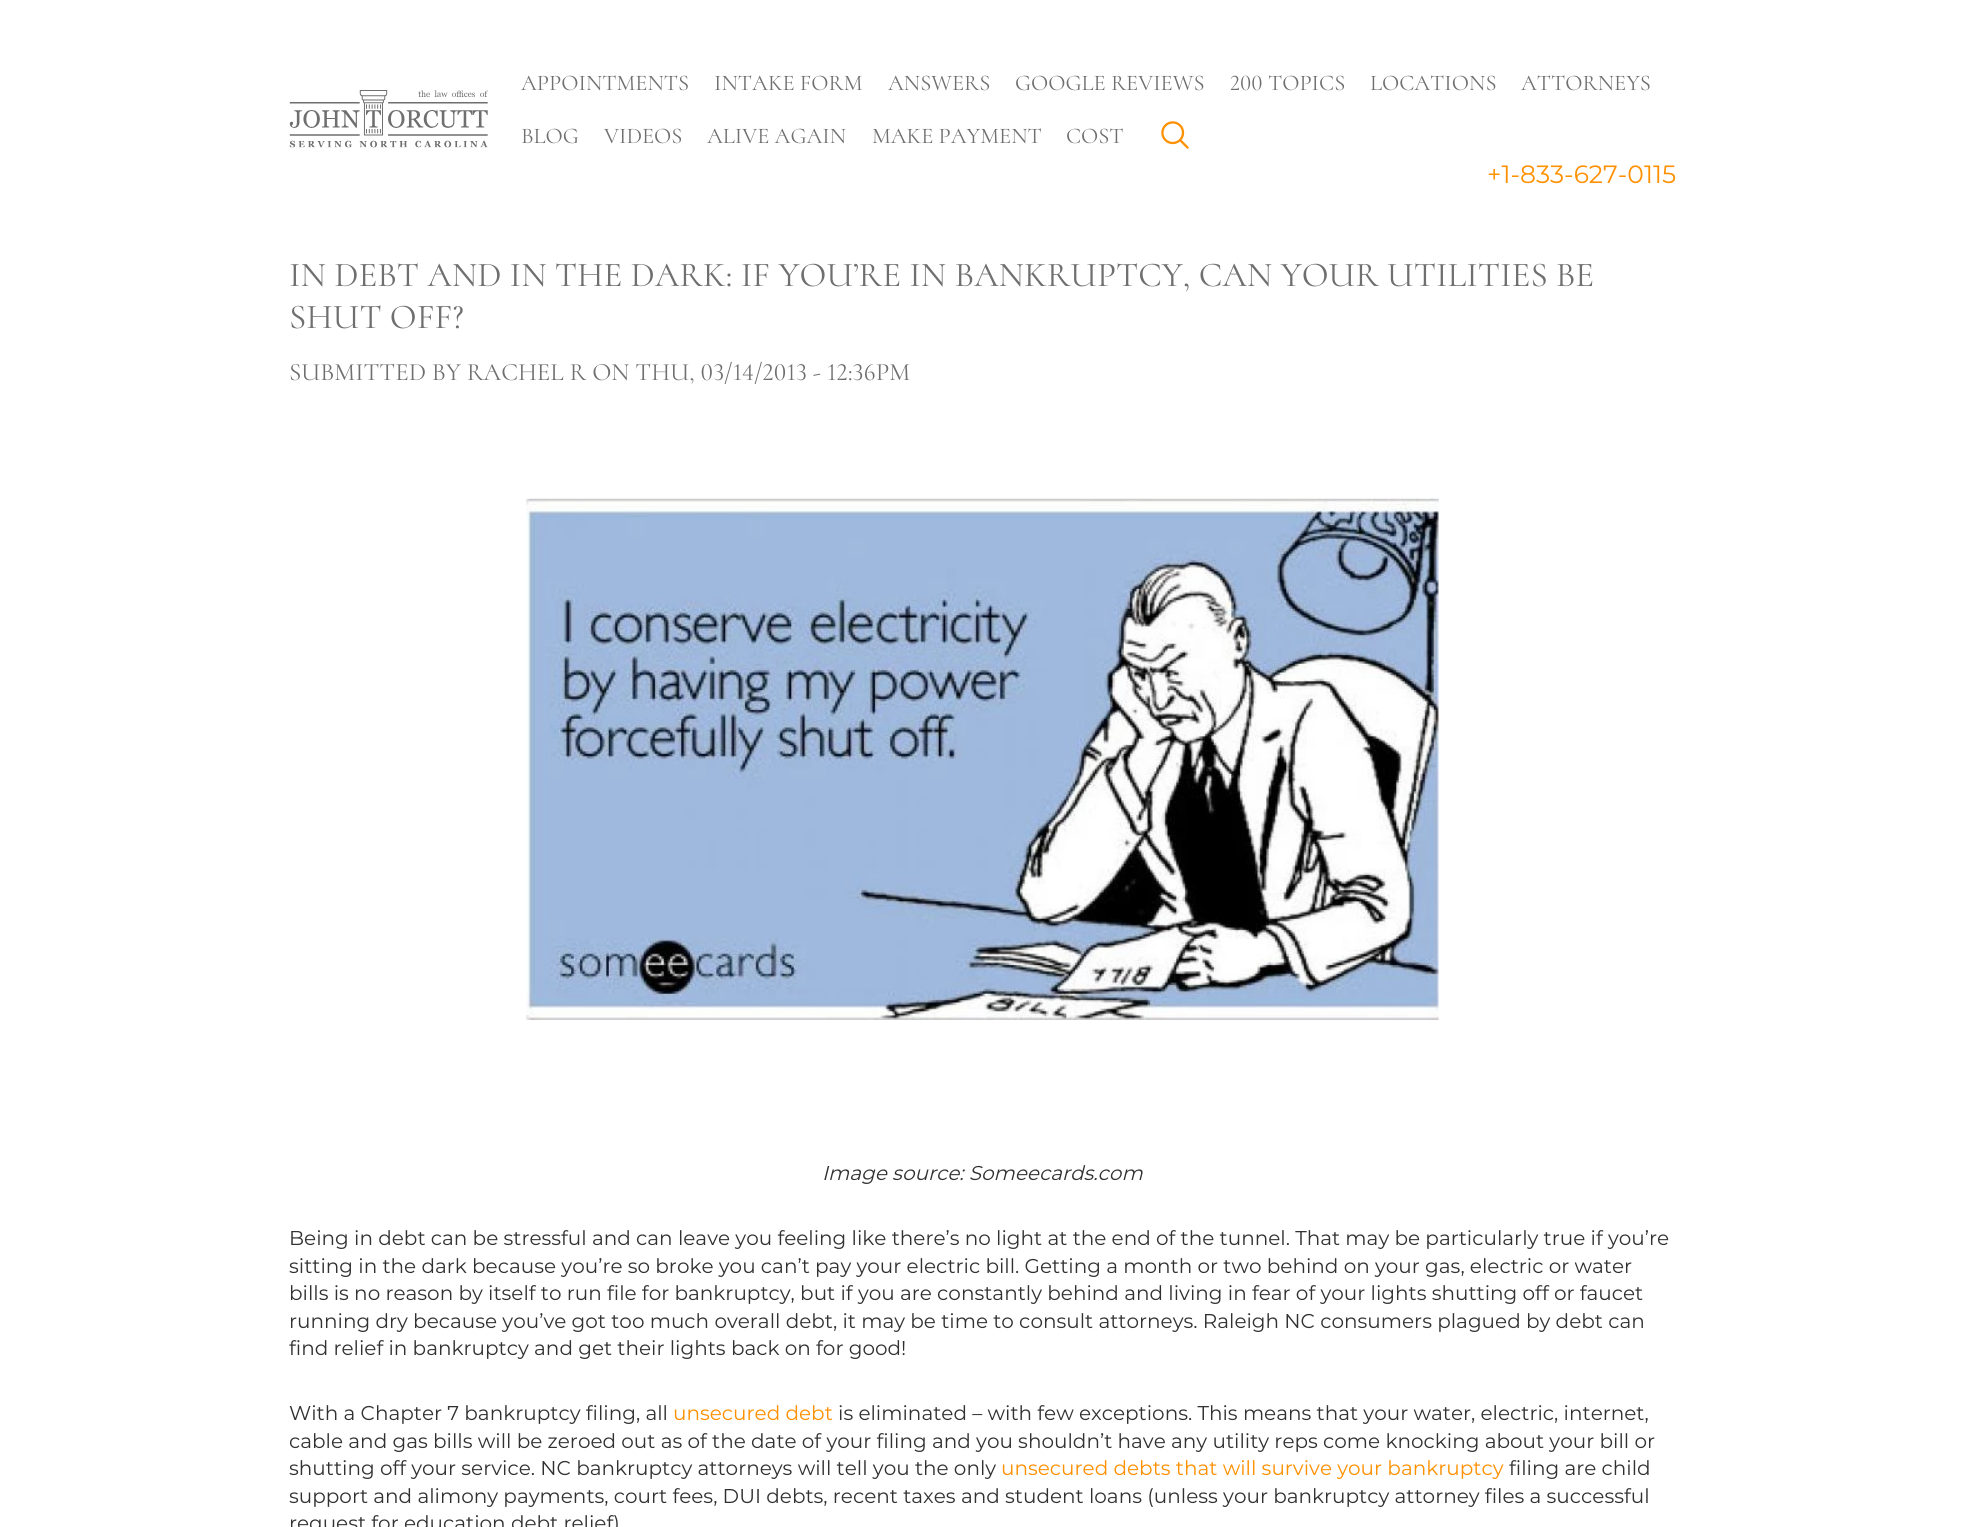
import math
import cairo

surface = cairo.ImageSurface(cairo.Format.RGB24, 1964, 1527)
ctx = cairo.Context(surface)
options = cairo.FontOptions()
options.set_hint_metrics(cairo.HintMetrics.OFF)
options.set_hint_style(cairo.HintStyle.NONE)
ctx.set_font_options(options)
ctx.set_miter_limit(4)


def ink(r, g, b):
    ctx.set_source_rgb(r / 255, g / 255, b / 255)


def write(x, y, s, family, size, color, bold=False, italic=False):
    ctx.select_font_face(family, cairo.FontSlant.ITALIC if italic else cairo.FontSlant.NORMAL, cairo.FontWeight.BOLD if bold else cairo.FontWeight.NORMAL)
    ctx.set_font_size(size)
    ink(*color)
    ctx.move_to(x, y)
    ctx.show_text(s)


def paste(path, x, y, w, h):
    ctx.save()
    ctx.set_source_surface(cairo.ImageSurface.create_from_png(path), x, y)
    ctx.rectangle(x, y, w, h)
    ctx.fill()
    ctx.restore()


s1 = dict(family="Cormorant Infant", size=22.5, color=(111, 111, 111))
s2 = dict(family="Montserrat", size=25, color=(255, 144, 0))
s3 = dict(family="Cormorant Infant", size=35, color=(111, 111, 111))
s4 = dict(family="Cormorant Infant", size=25, color=(111, 111, 111))
s5 = dict(family="Montserrat", size=20, color=(49, 49, 49), italic=True)
s6 = dict(family="Montserrat", size=20, color=(49, 49, 49))
s7 = dict(family="Montserrat", size=20, color=(255, 144, 0))

ink(255, 255, 255)
ctx.paint()
paste("pic1.png", 289, 90, 199, 58)
write(521, 90, "APPOINTMENTS", **s1)
write(714, 90, "INTAKE FORM", **s1)
write(888, 90, "ANSWERS", **s1)
write(1015, 90, "GOOGLE REVIEWS", **s1)
write(1230, 90, "200 TOPICS", **s1)
write(1370, 90, "LOCATIONS", **s1)
write(1521, 90, "ATTORNEYS", **s1)
write(521, 143, "BLOG", **s1)
write(604, 143, "VIDEOS", **s1)
write(707, 143, "ALIVE AGAIN", **s1)
write(872, 143, "MAKE PAYMENT", **s1)
write(1066, 143, "COST", **s1)
paste("pic2.png", 1161, 121, 28, 28)
write(1487, 183, "+1-833-627-0115", **s2)
write(289, 286, "IN DEBT AND IN THE DARK: IF YOU’RE IN BANKRUPTCY, CAN YOUR UTILITIES BE", **s3)
write(289, 328, "SHUT OFF?", **s3)
write(289, 380, "SUBMITTED BY RACHEL R ON THU, 03/14/2013 - 12:36PM", **s4)
paste("pic3.png", 526, 498, 913, 522)
write(822, 1180, "Image source: Someecards.com", **s5)
write(289, 1245, "Being in debt can be stressful and can leave you feeling like there’s no light at the end of the tunnel. That may be particularly true if you’re", **s6)
write(289, 1273, "sitting in the dark because you’re so broke you can’t pay your electric bill. Getting a month or two behind on your gas, electric or water", **s6)
write(289, 1300, "bills is no reason by itself to run file for bankruptcy, but if you are constantly behind and living in fear of your lights shutting off or faucet", **s6)
write(289, 1328, "running dry because you’ve got too much overall debt, it may be time to consult attorneys. Raleigh NC consumers plagued by debt can", **s6)
write(289, 1355, "find relief in bankruptcy and get their lights back on for good!", **s6)
write(289, 1420, "With a Chapter 7 bankruptcy filing, all", **s6)
write(673, 1420, "unsecured debt", **s7)
write(838, 1420, "is eliminated – with few exceptions. This means that your water, electric, internet,", **s6)
write(289, 1448, "cable and gas bills will be zeroed out as of the date of your filing and you shouldn’t have any utility reps come knocking about your bill or", **s6)
write(289, 1475, "shutting off your service. NC bankruptcy attorneys will tell you the only", **s6)
write(1001, 1475, "unsecured debts that will survive your bankruptcy", **s7)
write(1509, 1475, "filing are child", **s6)
write(289, 1503, "support and alimony payments, court fees, DUI debts, recent taxes and student loans (unless your bankruptcy attorney files a successful", **s6)
write(289, 1530, "request for education debt relief)", **s6)
surface.write_to_png("screenshot.png")
